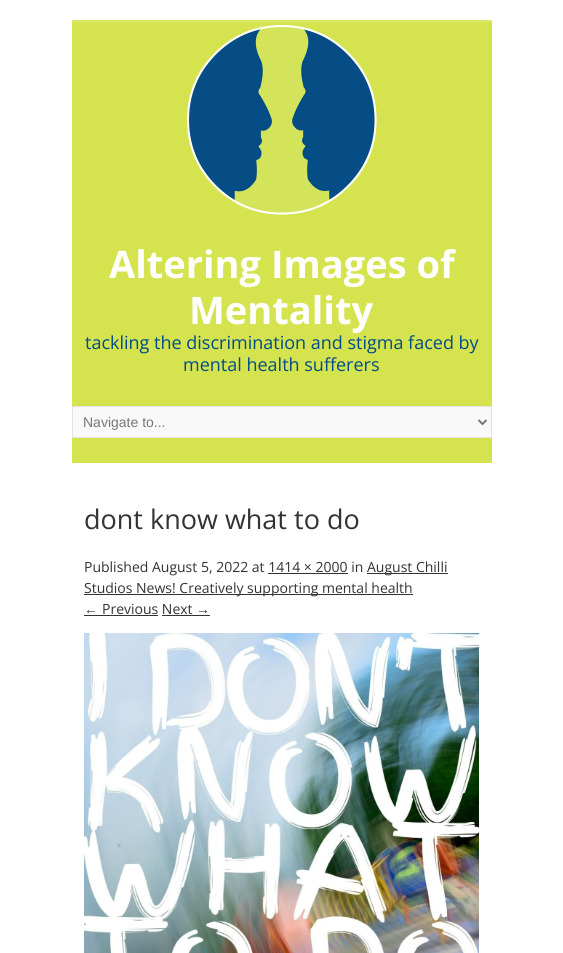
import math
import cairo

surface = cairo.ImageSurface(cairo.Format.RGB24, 563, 953)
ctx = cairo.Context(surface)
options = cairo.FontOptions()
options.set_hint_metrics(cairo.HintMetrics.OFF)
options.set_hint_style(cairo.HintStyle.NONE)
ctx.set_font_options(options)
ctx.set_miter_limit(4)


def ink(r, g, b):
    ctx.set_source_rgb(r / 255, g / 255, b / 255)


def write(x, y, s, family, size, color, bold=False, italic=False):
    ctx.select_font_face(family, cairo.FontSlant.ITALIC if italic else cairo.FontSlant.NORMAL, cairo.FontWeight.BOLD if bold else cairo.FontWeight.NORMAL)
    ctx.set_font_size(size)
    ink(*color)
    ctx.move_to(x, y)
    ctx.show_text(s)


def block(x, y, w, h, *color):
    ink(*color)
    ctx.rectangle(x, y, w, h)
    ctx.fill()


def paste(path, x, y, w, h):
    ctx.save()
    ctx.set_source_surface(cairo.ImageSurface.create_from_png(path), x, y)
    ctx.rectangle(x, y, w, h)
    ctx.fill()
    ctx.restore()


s1 = dict(family="Open Sans", size=38, color=(255, 255, 255), bold=True)
s2 = dict(family="Open Sans", size=18, color=(0, 76, 134))
s3 = dict(family="Liberation Sans", size=14, color=(119, 119, 119))
s4 = dict(family="Open Sans", size=27, color=(51, 51, 51))
s5 = dict(family="Open Sans", size=14, color=(51, 51, 51))
s6 = dict(family="Liberation Sans", size=14, color=(51, 51, 51))

ink(255, 255, 255)
ctx.paint()
block(72, 22, 420, 441, 213, 227, 78)
paste("pic1.png", 187, 25, 190, 190)
write(109, 278, "Altering Images of", **s1)
write(189, 324, "Mentality", **s1)
write(85, 349, "tackling the discrimination and stigma faced by", **s2)
write(183, 371, "mental health sufferers", **s2)
block(72, 20, 420, 2, 219, 230, 108)
ink(249, 249, 249)
ctx.rectangle(72.5, 406.5, 419, 31)
ctx.fill_preserve()
ink(227, 227, 227)
ctx.set_line_width(1)
ctx.stroke()
ctx.new_path()
ctx.move_to(478.5, 420)
ctx.line_to(482.5, 424)
ctx.line_to(486.5, 420)
ink(119, 119, 119)
ctx.set_line_width(2)
ctx.stroke()
write(83, 427, "Navigate to...", **s3)
write(84, 529, "dont know what to do", **s4)
write(84, 572, "Published August 5, 2022 at 1414 × 2000 in", **s5)
block(367, 573, 81, 1, 51, 51, 51)
write(367, 572, "August Chilli", **s5)
block(268, 573, 80, 1, 51, 51, 51)
block(84, 594, 329, 1, 51, 51, 51)
write(84, 593, "Studios News! Creatively supporting mental health", **s5)
write(84, 614, "←", **s6)
block(84, 615, 74, 1, 51, 51, 51)
write(102, 614, "Previous Next", **s5)
write(196, 614, "→", **s6)
block(162, 615, 48, 1, 51, 51, 51)
paste("pic2.png", 84, 633, 395, 320)
surface.write_to_png("screenshot.png")
